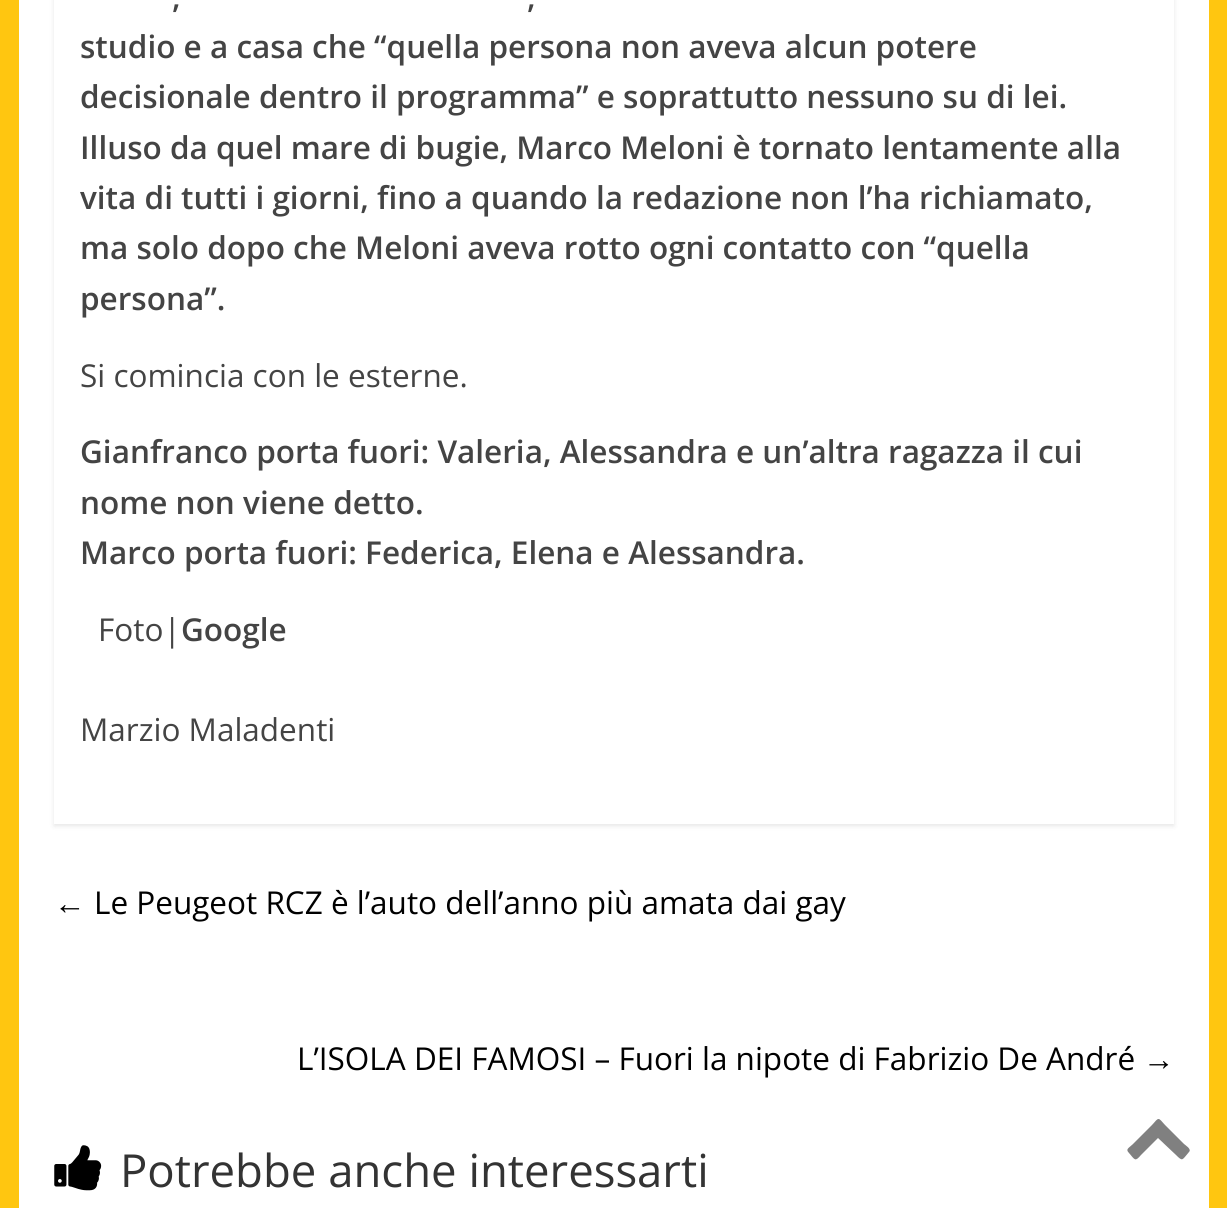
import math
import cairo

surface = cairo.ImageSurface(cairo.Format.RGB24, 1227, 1208)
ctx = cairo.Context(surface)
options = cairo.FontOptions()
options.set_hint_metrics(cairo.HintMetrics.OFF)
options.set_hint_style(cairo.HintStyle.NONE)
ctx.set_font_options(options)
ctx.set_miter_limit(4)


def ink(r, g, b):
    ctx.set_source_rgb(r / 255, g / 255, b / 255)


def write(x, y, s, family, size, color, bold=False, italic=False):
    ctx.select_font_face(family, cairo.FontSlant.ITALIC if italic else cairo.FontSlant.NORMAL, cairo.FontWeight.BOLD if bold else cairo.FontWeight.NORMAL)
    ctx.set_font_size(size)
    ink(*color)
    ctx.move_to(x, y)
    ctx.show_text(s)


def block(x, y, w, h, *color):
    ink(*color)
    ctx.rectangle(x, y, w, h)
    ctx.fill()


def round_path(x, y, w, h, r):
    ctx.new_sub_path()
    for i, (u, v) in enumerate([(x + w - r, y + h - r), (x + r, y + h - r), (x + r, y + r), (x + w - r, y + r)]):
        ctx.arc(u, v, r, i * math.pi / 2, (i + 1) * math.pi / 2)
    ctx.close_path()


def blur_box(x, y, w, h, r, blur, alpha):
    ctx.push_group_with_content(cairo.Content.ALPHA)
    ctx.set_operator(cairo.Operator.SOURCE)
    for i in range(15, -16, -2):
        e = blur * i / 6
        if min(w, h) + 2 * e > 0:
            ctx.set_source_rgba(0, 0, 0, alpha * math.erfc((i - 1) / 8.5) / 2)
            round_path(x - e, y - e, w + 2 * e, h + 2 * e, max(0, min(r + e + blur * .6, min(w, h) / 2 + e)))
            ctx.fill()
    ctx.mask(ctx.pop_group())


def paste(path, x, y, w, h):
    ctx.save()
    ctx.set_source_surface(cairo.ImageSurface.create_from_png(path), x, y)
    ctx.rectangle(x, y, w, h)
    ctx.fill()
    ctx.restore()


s1 = dict(family="Open Sans SemiBold", size=31.5, color=(68, 68, 68))
s2 = dict(family="Open Sans", size=31.5, color=(68, 68, 68))
s3 = dict(family="Liberation Serif", size=31.5, color=(0, 0, 0))
s4 = dict(family="Open Sans", size=31.5, color=(0, 0, 0))
s5 = dict(family="Open Sans", size=45.5, color=(51, 51, 51))

ink(255, 198, 16)
ctx.paint()
block(19, 0, 1190, 1208, 255, 255, 255)
ctx.save()
ctx.set_fill_rule(cairo.FillRule.EVEN_ODD)
ctx.new_path()
ctx.move_to(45, 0)
ctx.line_to(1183, 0)
ctx.line_to(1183, 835)
ctx.line_to(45, 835)
ctx.close_path()
ctx.move_to(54, -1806)
ctx.line_to(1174, -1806)
ctx.line_to(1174, 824)
ctx.line_to(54, 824)
ctx.close_path()
ctx.clip()
ink(0, 0, 0)
blur_box(54, -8, 1120, 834, 0, 2.5, 0.1)
ctx.restore()
write(172, 8, ",", **s1)
write(527, 8, ",", **s1)
write(80, 58, "studio e a casa che “quella persona non aveva alcun potere", **s1)
write(80, 108, "decisionale dentro il programma” e soprattutto nessuno su di lei.", **s1)
write(80, 159, "Illuso da quel mare di bugie, Marco Meloni è tornato lentamente alla", **s1)
write(80, 209, "vita di tutti i giorni, fino a quando la redazione non l’ha richiamato,", **s1)
write(80, 259, "ma solo dopo che Meloni aveva rotto ogni contatto con “quella", **s1)
write(80, 310, "persona”.", **s1)
write(80, 387, "Si comincia con le esterne.", **s2)
write(80, 463, "Gianfranco porta fuori: Valeria, Alessandra e un’altra ragazza il cui", **s1)
write(80, 514, "nome non viene detto.", **s1)
write(80, 564, "Marco porta fuori: Federica, Elena e Alessandra.", **s1)
write(98, 641, "Foto|", **s2)
write(181, 641, "Google", **s1)
write(80, 741, "Marzio Maladenti", **s2)
write(54, 914, "←", **s3)
write(94, 914, "Le Peugeot RCZ è l’auto dell’anno più amata dai gay", **s4)
write(297, 1070, "L’ISOLA DEI FAMOSI – Fuori la nipote di Fabrizio De André", **s4)
write(1143, 1070, "→", **s3)
paste("pic1.png", 54, 1145, 48, 46)
write(120, 1187, "Potrebbe anche interessarti", **s5)
ink(128, 128, 128)
ctx.new_path()
ctx.move_to(1189, 1152)
ctx.curve_to(1182, 1160, 1183, 1162, 1176, 1155)
ctx.line_to(1158, 1138)
ctx.line_to(1141, 1155)
ctx.curve_to(1135, 1162, 1135, 1160, 1129, 1153)
ctx.curve_to(1125, 1149, 1129, 1148, 1133, 1144)
ctx.line_to(1152, 1125)
ctx.curve_to(1159, 1117, 1158, 1117, 1165, 1125)
ctx.line_to(1184, 1144)
ctx.curve_to(1185, 1145, 1192, 1149, 1189, 1152)
ctx.close_path()
ctx.fill()
surface.write_to_png("screenshot.png")
